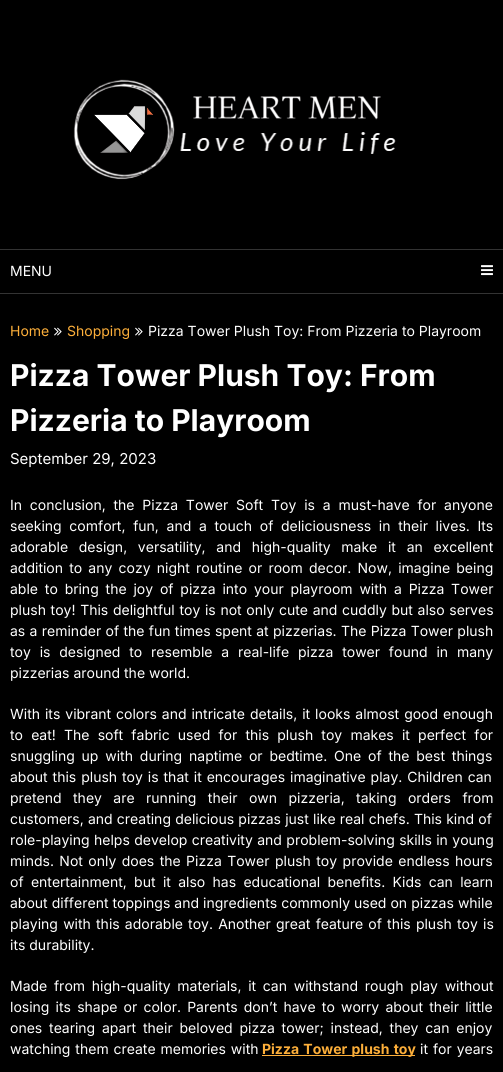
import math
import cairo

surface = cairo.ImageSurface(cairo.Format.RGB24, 503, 1072)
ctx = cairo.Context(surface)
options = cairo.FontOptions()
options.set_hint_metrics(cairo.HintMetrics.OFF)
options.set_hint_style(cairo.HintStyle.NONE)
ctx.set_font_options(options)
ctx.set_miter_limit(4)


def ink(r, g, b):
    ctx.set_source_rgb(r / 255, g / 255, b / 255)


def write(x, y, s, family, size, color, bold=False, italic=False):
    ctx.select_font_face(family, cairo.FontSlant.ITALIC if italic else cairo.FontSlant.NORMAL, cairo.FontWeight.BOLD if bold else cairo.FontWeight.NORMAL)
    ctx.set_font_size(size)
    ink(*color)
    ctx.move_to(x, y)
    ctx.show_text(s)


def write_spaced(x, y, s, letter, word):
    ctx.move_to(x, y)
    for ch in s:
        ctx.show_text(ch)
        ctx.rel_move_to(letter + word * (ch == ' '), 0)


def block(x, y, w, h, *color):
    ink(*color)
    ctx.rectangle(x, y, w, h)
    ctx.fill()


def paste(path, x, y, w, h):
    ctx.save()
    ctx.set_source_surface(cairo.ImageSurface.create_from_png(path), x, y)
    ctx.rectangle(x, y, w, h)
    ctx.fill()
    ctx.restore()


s1 = dict(family="Inter", size=14, color=(255, 255, 255))
s2 = dict(family="Inter", size=14, color=(253, 175, 58))
s3 = dict(family="Inter", size=30, color=(255, 255, 255), bold=True)
s4 = dict(family="Inter", size=15, color=(255, 255, 255))

ink(0, 0, 0)
ctx.paint()
paste("pic1.png", 73, 79, 323, 101)
block(0, 249, 503, 1, 51, 51, 51)
block(0, 293, 503, 1, 51, 51, 51)
write(10, 276, "MENU", **s1)
paste("pic2.png", 481, 265, 12, 11)
write(10, 336, "Home", **s2)
paste("pic3.png", 54, 327, 8, 9)
write(67, 336, "Shopping", **s2)
paste("pic3.png", 135, 327, 8, 9)
write(148, 336, "Pizza Tower Plush Toy: From Pizzeria to Playroom", **s1)
write(10, 386, "Pizza Tower Plush Toy: From", **s3)
write(10, 431, "Pizzeria to Playroom", **s3)
write(10, 464, "September 29, 2023", **s4)
ctx.set_font_size(14)
write_spaced(10, 510, "In conclusion, the Pizza Tower Soft Toy is a must-have for anyone", 0, 3.9)
write_spaced(10, 531, "seeking comfort, fun, and a touch of deliciousness in their lives. Its", 0, 3.75)
write_spaced(10, 552, "adorable design, versatility, and high-quality make it an excellent", 0, 6.75)
write_spaced(10, 573, "addition to any cozy night routine or room decor. Now, imagine being", 0, 2.25)
write_spaced(10, 594, "able to bring the joy of pizza into your playroom with a Pizza Tower", 0, 2.9)
write_spaced(10, 615, "plush toy! This delightful toy is not only cute and cuddly but also serves", 0, 0.75)
write_spaced(10, 636, "as a reminder of the fun times spent at pizzerias. The Pizza Tower plush", 0, 0.4)
write_spaced(10, 657, "toy is designed to resemble a real-life pizza tower found in many", 0, 4.9)
write(10, 678, "pizzerias around the world.", **s1)
write_spaced(10, 719, "With its vibrant colors and intricate details, it looks almost good enough", 0, 1)
write_spaced(10, 740, "to eat! The soft fabric used for this plush toy makes it perfect for", 0, 4.25)
write_spaced(10, 761, "snuggling up with during naptime or bedtime. One of the best things", 0, 2.9)
write_spaced(10, 782, "about this plush toy is that it encourages imaginative play. Children can", 0, 1)
write_spaced(10, 803, "pretend they are running their own pizzeria, taking orders from", 0, 7.5)
write_spaced(10, 824, "customers, and creating delicious pizzas just like real chefs. This kind of", 0, 0.25)
write_spaced(10, 845, "role-playing helps develop creativity and problem-solving skills in young", 0, 0.5)
write_spaced(10, 866, "minds. Not only does the Pizza Tower plush toy provide endless hours", 0, 1.5)
write_spaced(10, 887, "of entertainment, but it also has educational benefits. Kids can learn", 0, 3.4)
write_spaced(10, 908, "about different toppings and ingredients commonly used on pizzas while", 0, 0.1)
write_spaced(10, 929, "playing with this adorable toy. Another great feature of this plush toy is", 0, 1.25)
write(10, 950, "its durability.", **s1)
write_spaced(10, 991, "Made from high-quality materials, it can withstand rough play without", 0, 2.75)
write_spaced(10, 1012, "losing its shape or color. Parents don’t have to worry about their little", 0, 2.25)
write_spaced(10, 1033, "ones tearing apart their beloved pizza tower; instead, they can enjoy", 0, 2.9)
write_spaced(10, 1054, "watching them create memories with", 0, 1)
block(262, 1055, 153, 1, 253, 175, 58)
ctx.select_font_face("Inter", cairo.FontSlant.NORMAL, cairo.FontWeight.BOLD)
write_spaced(262, 1054, "Pizza Tower plush toy", 0, 1)
ctx.select_font_face("Inter")
ink(255, 255, 255)
write_spaced(420, 1054, "it for years", 0, 1)
surface.write_to_png("screenshot.png")
